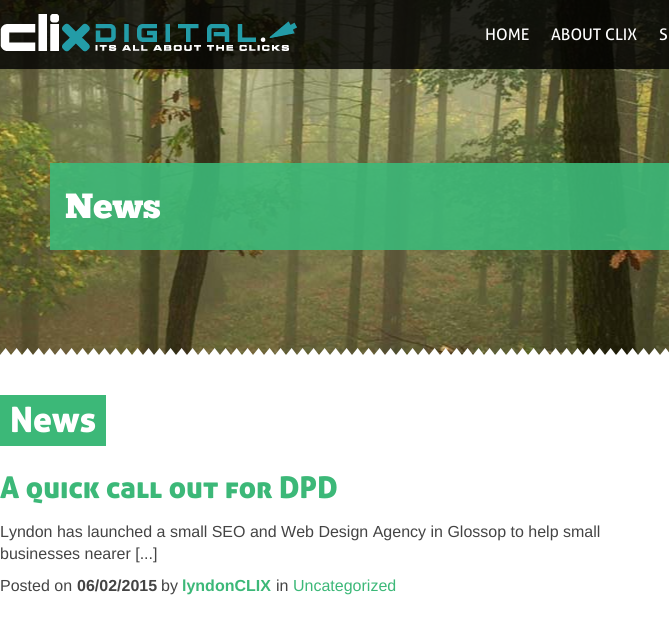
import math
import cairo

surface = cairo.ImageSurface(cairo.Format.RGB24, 669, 625)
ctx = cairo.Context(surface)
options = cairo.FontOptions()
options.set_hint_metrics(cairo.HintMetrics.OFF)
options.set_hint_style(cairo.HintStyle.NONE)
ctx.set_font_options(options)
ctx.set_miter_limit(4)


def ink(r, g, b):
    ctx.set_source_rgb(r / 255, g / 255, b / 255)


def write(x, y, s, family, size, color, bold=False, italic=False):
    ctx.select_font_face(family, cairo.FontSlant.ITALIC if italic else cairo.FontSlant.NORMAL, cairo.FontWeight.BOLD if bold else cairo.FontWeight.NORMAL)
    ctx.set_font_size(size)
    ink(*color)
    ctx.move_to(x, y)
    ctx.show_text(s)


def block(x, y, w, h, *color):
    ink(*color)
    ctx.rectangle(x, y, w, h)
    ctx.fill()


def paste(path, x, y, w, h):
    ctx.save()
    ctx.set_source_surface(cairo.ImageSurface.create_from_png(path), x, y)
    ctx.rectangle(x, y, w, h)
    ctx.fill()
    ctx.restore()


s1 = dict(family="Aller", size=16, color=(255, 255, 255))
s2 = dict(family="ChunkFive", size=35, color=(255, 255, 255))
s3 = dict(family="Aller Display", size=35, color=(255, 255, 255))
s4 = dict(family="Aller Display", size=30, color=(60, 184, 120))
s5 = dict(family="Liberation Sans", size=16, color=(68, 68, 68))
s6 = dict(family="Liberation Sans", size=16, color=(68, 68, 68), bold=True)
s7 = dict(family="Liberation Sans", size=16, color=(60, 184, 120), bold=True)
s8 = dict(family="Liberation Sans", size=16, color=(60, 184, 120))

ink(255, 255, 255)
ctx.paint()
paste("pic2.png", 0, 0, 669, 355)
ctx.set_source_rgba(0, 0, 0, 0.8)
ctx.rectangle(0, 0, 669, 69)
ctx.fill()
paste("pic1.png", 0, 14, 297, 38)
write(485, 40, "HOME", **s1)
write(551, 40, "ABOUT CLIX", **s1)
write(659, 40, "S", **s1)
ctx.set_source_rgba(0.235, 0.722, 0.471, 0.9)
ctx.rectangle(50, 163, 619, 87)
ctx.fill()
write(65, 218, "News", **s2)
paste("pic3.png", 0, 348, 669, 7)
block(0, 395, 106, 51, 60, 184, 120)
write(10, 432, "News", **s3)
write(0, 498, "A quick call out for DPD", **s4)
write(0, 537, "Lyndon has launched a small SEO and Web Design Agency in Glossop to help small", **s5)
write(0, 559, "businesses nearer [...]", **s5)
write(0, 591, "Posted on", **s5)
write(77, 591, "06/02/2015", **s6)
write(161, 591, "by", **s5)
write(182, 591, "lyndonCLIX", **s7)
write(276, 591, "in", **s5)
write(293, 591, "Uncategorized", **s8)
surface.write_to_png("screenshot.png")
